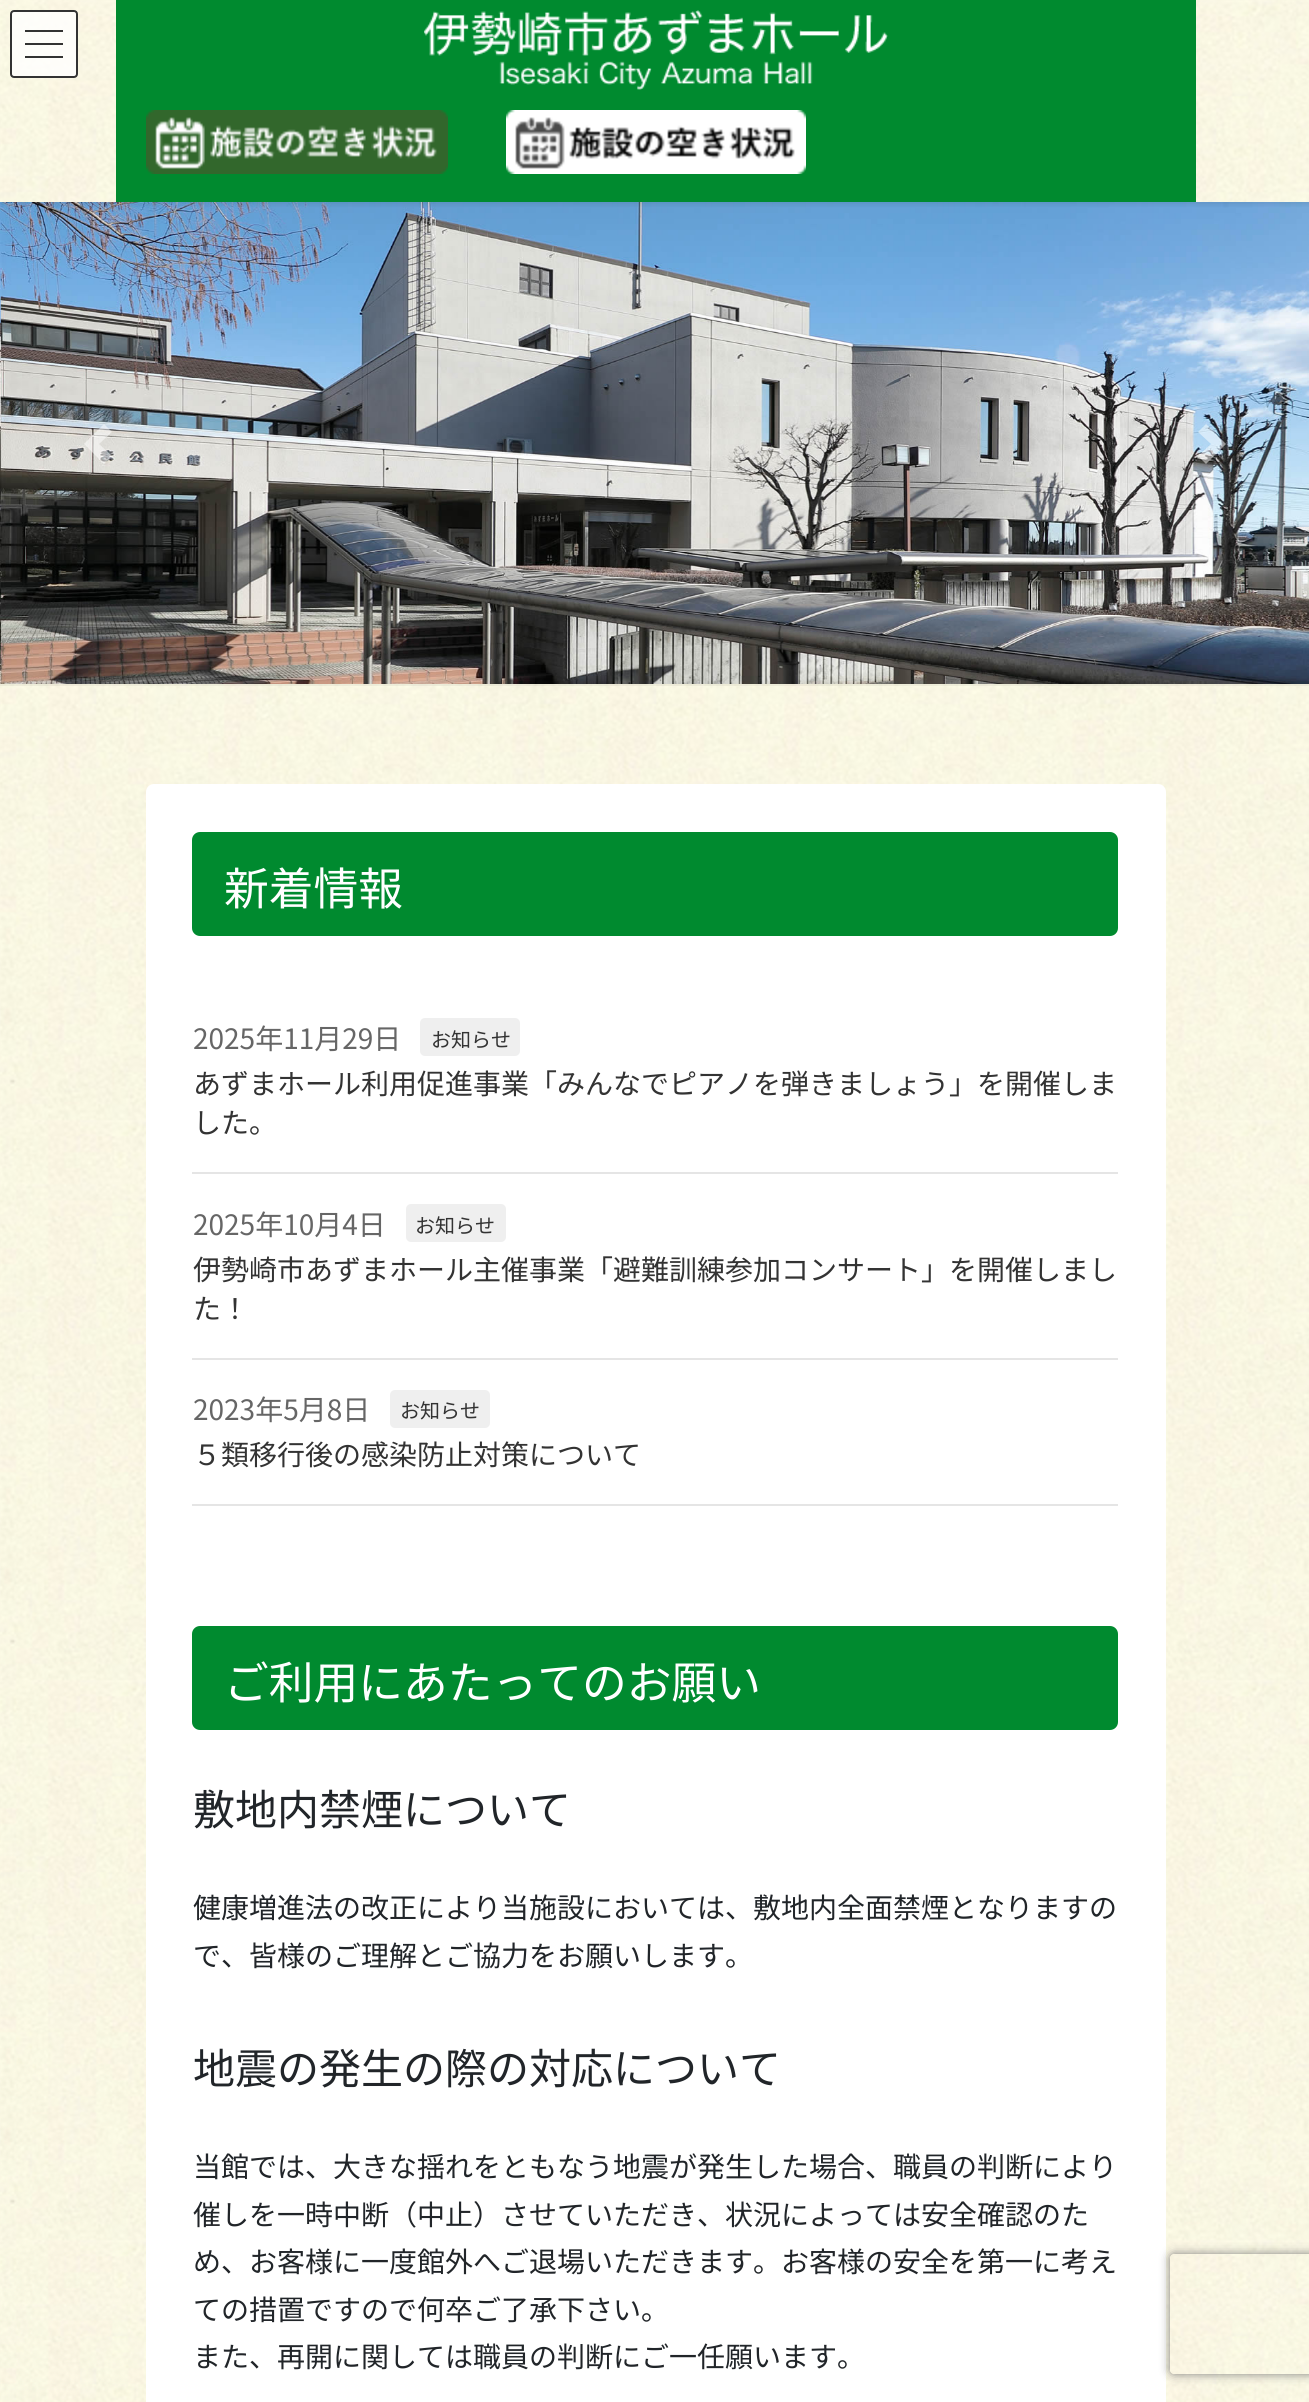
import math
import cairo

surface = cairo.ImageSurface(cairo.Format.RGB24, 1309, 2402)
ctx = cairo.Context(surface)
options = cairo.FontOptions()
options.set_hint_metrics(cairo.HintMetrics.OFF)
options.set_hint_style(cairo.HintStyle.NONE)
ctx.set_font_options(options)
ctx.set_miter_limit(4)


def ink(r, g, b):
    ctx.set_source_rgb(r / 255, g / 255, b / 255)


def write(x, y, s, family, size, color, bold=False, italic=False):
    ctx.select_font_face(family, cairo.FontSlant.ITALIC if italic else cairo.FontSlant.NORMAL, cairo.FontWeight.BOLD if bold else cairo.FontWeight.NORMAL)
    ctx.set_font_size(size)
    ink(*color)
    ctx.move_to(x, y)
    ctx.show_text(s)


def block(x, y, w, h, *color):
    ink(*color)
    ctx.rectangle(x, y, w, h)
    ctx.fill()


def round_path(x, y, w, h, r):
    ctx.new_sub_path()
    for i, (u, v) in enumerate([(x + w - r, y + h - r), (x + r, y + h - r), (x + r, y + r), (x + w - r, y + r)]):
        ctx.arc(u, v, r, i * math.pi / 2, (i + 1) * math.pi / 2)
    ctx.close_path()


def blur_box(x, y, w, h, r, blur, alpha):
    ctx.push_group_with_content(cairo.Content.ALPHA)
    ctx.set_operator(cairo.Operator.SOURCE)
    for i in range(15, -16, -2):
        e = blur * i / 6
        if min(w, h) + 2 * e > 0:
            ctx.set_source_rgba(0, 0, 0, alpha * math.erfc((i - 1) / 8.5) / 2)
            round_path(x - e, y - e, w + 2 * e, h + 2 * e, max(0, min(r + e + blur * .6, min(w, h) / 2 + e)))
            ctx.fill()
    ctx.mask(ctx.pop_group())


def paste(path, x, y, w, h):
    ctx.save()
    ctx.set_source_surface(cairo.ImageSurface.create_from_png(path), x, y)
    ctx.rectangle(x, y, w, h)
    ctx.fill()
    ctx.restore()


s1 = dict(family="Noto Sans JP", size=44.75, color=(255, 255, 255))
s2 = dict(family="Noto Sans JP", size=28, color=(102, 102, 102))
s3 = dict(family="Noto Sans JP", size=20, color=(51, 51, 51))
s4 = dict(family="Noto Sans JP", size=28, color=(51, 51, 51))
s5 = dict(family="Noto Sans JP", size=42, color=(33, 37, 41))
s6 = dict(family="Noto Sans JP", size=28, color=(33, 37, 41))

ink(255, 255, 255)
ctx.paint()
paste("pic1.png", 0, 0, 1309, 2402)
paste("pic5.png", 0, 202, 1309, 482)
ctx.save()
ctx.rectangle(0, 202, 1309, 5)
ctx.clip()
ink(0, 0, 0)
blur_box(0, 2, 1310, 202, 0, 3, 0.1)
ctx.restore()
block(116, 0, 1080, 202, 0, 138, 47)
paste("pic2.png", 424, 10, 464, 80)
paste("pic3.png", 146, 110, 302, 64)
paste("pic4.png", 506, 110, 300, 64)
ctx.set_source_rgba(1, 1, 1, 0.8)
round_path(10, 10, 68, 68, 4)
ctx.fill()
block(25, 30, 38, 2, 51, 51, 50)
block(25, 43, 38, 2, 51, 51, 50)
block(25, 56, 38, 2, 51, 51, 50)
round_path(11, 11, 66, 66, 3)
ink(51, 51, 51)
ctx.stroke()
ctx.set_source_rgba(0, 0, 0, 0.05)
ctx.rectangle(0, 684, 1309, 2)
ctx.fill()
ctx.set_source_rgba(1, 1, 1, 0.5)
ctx.new_path()
ctx.move_to(104, 424)
ctx.line_to(84, 444)
ctx.line_to(104, 464)
ctx.line_to(112, 456)
ctx.line_to(99, 444)
ctx.line_to(112, 432)
ctx.close_path()
ctx.fill()
ctx.new_path()
ctx.move_to(1206, 424)
ctx.line_to(1198, 432)
ctx.line_to(1211, 444)
ctx.line_to(1198, 456)
ctx.line_to(1206, 464)
ctx.line_to(1226, 444)
ctx.close_path()
ctx.fill()
ink(255, 255, 255)
round_path(146, 784, 1020, 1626, 8)
ctx.fill()
ink(0, 138, 47)
round_path(192, 832, 926, 104, 8)
ctx.fill()
write(224, 905, "新着情報", **s1)
block(192, 1172, 926, 2, 229, 229, 229)
write(193, 1049, "2025年11月29日", **s2)
ink(239, 239, 239)
round_path(420, 1018, 100, 38, 5)
ctx.fill()
write(431, 1047, "お知らせ", **s3)
write(193, 1094, "あずまホール利用促進事業「みんなでピアノを弾きましょう」を開催しま", **s4)
write(193, 1133, "した。", **s4)
block(192, 1358, 926, 2, 229, 229, 229)
write(193, 1235, "2025年10月4日", **s2)
ink(239, 239, 239)
round_path(406, 1204, 100, 38, 5)
ctx.fill()
write(415, 1233, "お知らせ", **s3)
write(193, 1280, "伊勢崎市あずまホール主催事業「避難訓練参加コンサート」を開催しまし", **s4)
write(193, 1319, "た！", **s4)
block(192, 1504, 926, 2, 229, 229, 229)
write(193, 1420, "2023年5月8日", **s2)
ink(239, 239, 239)
round_path(390, 1390, 100, 38, 5)
ctx.fill()
write(400, 1418, "お知らせ", **s3)
write(193, 1465, "５類移行後の感染防止対策について", **s4)
ink(0, 138, 47)
round_path(192, 1626, 926, 104, 8)
ctx.fill()
write(224, 1699, "ご利用にあたってのお願い", **s1)
write(193, 1825, "敷地内禁煙について", **s5)
write(193, 1918, "健康増進法の改正により当施設においては、敷地内全面禁煙となりますの", **s6)
write(193, 1966, "で、皆様のご理解とご協力をお願いします。", **s6)
write(193, 2084, "地震の発生の際の対応について", **s5)
write(193, 2177, "当館では、大きな揺れをともなう地震が発生した場合、職員の判断により", **s6)
write(193, 2225, "催しを一時中断（中止）させていただき、状況によっては安全確認のた", **s6)
write(193, 2272, "め、お客様に一度館外へご退場いただきます。お客様の安全を第一に考え", **s6)
write(193, 2320, "ての措置ですので何卒ご了承下さい。", **s6)
write(193, 2367, "また、再開に関しては職員の判断にご一任願います。", **s6)
ctx.save()
ctx.set_fill_rule(cairo.FillRule.EVEN_ODD)
ctx.new_path()
ctx.move_to(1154, 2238)
ctx.line_to(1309, 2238)
ctx.line_to(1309, 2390)
ctx.line_to(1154, 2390)
ctx.close_path()
ctx.move_to(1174, 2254)
ctx.line_to(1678, 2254)
ctx.curve_to(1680, 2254, 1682, 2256, 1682, 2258)
ctx.line_to(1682, 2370)
ctx.curve_to(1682, 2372, 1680, 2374, 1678, 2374)
ctx.line_to(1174, 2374)
ctx.curve_to(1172, 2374, 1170, 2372, 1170, 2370)
ctx.line_to(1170, 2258)
ctx.curve_to(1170, 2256, 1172, 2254, 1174, 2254)
ctx.close_path()
ctx.clip()
ink(128, 128, 128)
blur_box(1170, 2254, 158, 120, 4, 5, 1)
ctx.restore()
surface.write_to_png("screenshot.png")
